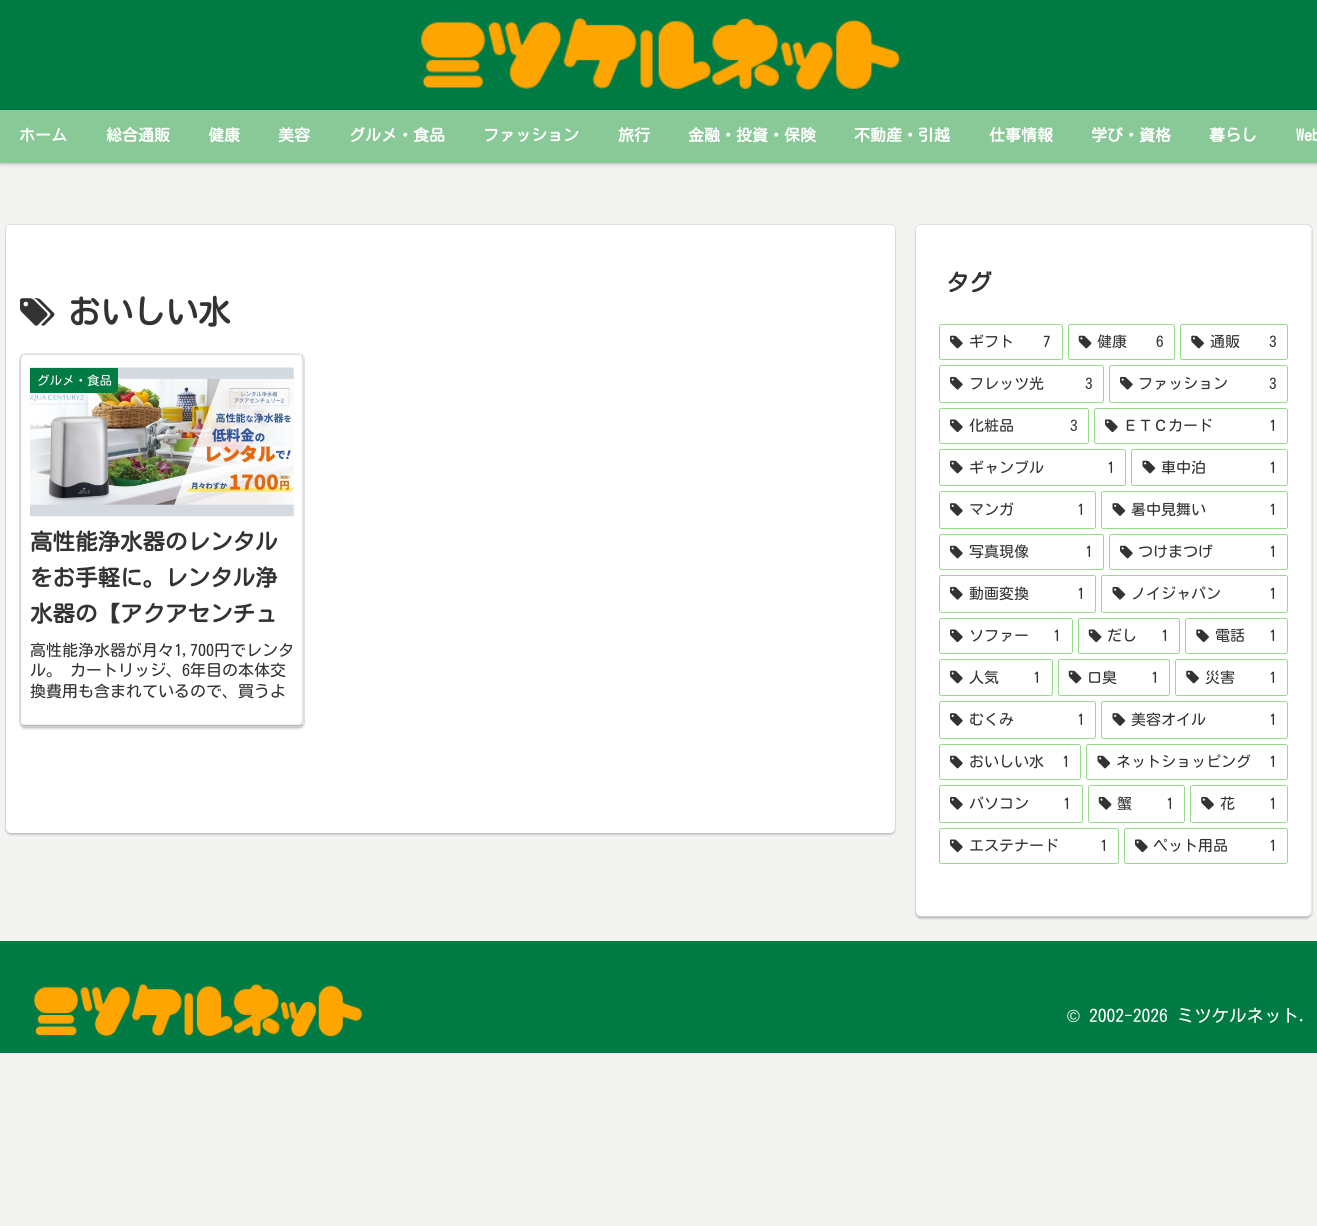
import math
import cairo

surface = cairo.ImageSurface(cairo.Format.RGB24, 1317, 1226)
ctx = cairo.Context(surface)
options = cairo.FontOptions()
options.set_hint_metrics(cairo.HintMetrics.OFF)
options.set_hint_style(cairo.HintStyle.NONE)
ctx.set_font_options(options)
ctx.set_miter_limit(4)


def ink(r, g, b):
    ctx.set_source_rgb(r / 255, g / 255, b / 255)


def write(x, y, s, family, size, color, bold=False, italic=False):
    ctx.select_font_face(family, cairo.FontSlant.ITALIC if italic else cairo.FontSlant.NORMAL, cairo.FontWeight.BOLD if bold else cairo.FontWeight.NORMAL)
    ctx.set_font_size(size)
    ink(*color)
    ctx.move_to(x, y)
    ctx.show_text(s)


def block(x, y, w, h, *color):
    ink(*color)
    ctx.rectangle(x, y, w, h)
    ctx.fill()


def round_path(x, y, w, h, r):
    ctx.new_sub_path()
    for i, (u, v) in enumerate([(x + w - r, y + h - r), (x + r, y + h - r), (x + r, y + r), (x + w - r, y + r)]):
        ctx.arc(u, v, r, i * math.pi / 2, (i + 1) * math.pi / 2)
    ctx.close_path()


def blur_box(x, y, w, h, r, blur, alpha):
    ctx.push_group_with_content(cairo.Content.ALPHA)
    ctx.set_operator(cairo.Operator.SOURCE)
    for i in range(15, -16, -2):
        e = blur * i / 6
        if min(w, h) + 2 * e > 0:
            ctx.set_source_rgba(0, 0, 0, alpha * math.erfc((i - 1) / 8.5) / 2)
            round_path(x - e, y - e, w + 2 * e, h + 2 * e, max(0, min(r + e + blur * .6, min(w, h) / 2 + e)))
            ctx.fill()
    ctx.mask(ctx.pop_group())


def paste(path, x, y, w, h):
    ctx.save()
    ctx.set_source_surface(cairo.ImageSurface.create_from_png(path), x, y)
    ctx.rectangle(x, y, w, h)
    ctx.fill()
    ctx.restore()


s1 = dict(family="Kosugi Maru", size=16, color=(255, 255, 255), bold=True)
s2 = dict(family="Kosugi Maru", size=32.5, color=(51, 51, 51), bold=True)
s3 = dict(family="Kosugi Maru", size=12.5, color=(255, 255, 255))
s4 = dict(family="Kosugi Maru", size=22.5, color=(51, 51, 51), bold=True)
s5 = dict(family="Kosugi Maru", size=16, color=(51, 51, 51))
s6 = dict(family="Kosugi Maru", size=23, color=(51, 51, 51), bold=True)
s7 = dict(family="Kosugi Maru", size=15, color=(51, 51, 51))
s8 = dict(family="Liberation Sans", size=17.5, color=(255, 255, 255))
s9 = dict(family="Kosugi Maru", size=17.5, color=(255, 255, 255))

ink(243, 243, 242)
ctx.paint()
block(0, 0, 1317, 110, 0, 123, 67)
paste("pic1.png", 421, 17, 480, 74)
ink(0, 0, 0)
blur_box(0, 111, 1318, 53, 0, 2, 0.25)
block(0, 110, 1317, 53, 137, 201, 151)
write(19, 141, "ホーム", **s1)
write(106, 141, "総合通販", **s1)
write(208, 141, "健康", **s1)
write(278, 141, "美容", **s1)
write(349, 141, "グルメ・食品", **s1)
write(483, 141, "ファッション", **s1)
write(618, 141, "旅行", **s1)
write(688, 141, "金融・投資・保険", **s1)
write(854, 141, "不動産・引越", **s1)
write(989, 141, "仕事情報", **s1)
write(1091, 141, "学び・資格", **s1)
write(1209, 141, "暮らし", **s1)
write(1296, 141, "Web", **s1)
round_path(5.5, 224.5, 890, 609, 5.5)
ink(224, 224, 223)
ctx.set_line_width(1)
ctx.stroke()
ink(0, 0, 0)
blur_box(6, 228, 889, 607, 5, 1, 0.16)
ink(255, 255, 255)
round_path(6, 225, 889, 608, 5)
ctx.fill()
paste("pic2.png", 20, 298, 35, 28)
write(68, 324, "おいしい水", **s2)
round_path(19.5, 353.5, 285, 374, 5.5)
ink(235, 235, 235)
ctx.stroke()
ctx.save()
ctx.set_fill_rule(cairo.FillRule.EVEN_ODD)
ctx.new_path()
ctx.move_to(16, 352)
ctx.line_to(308, 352)
ctx.line_to(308, 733)
ctx.line_to(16, 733)
ctx.close_path()
ctx.move_to(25, 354)
ctx.line_to(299, 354)
ctx.curve_to(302, 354, 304, 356, 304, 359)
ctx.line_to(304, 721)
ctx.curve_to(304, 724, 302, 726, 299, 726)
ctx.line_to(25, 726)
ctx.curve_to(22, 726, 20, 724, 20, 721)
ctx.line_to(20, 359)
ctx.curve_to(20, 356, 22, 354, 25, 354)
ctx.close_path()
ctx.clip()
ink(0, 0, 0)
blur_box(20, 356, 284, 373, 5, 1, 0.16)
ctx.restore()
ctx.new_path()
ctx.move_to(22, 355.5)
ctx.curve_to(22.5, 355, 24, 354.5, 25, 354.5)
ctx.line_to(299, 354.5)
ctx.curve_to(300, 354.5, 301, 355, 302, 355.5)
ink(227, 227, 227)
ctx.set_line_width(1.2)
ctx.stroke()
ctx.new_path()
ctx.move_to(302, 355.5)
ctx.line_to(303, 359)
ctx.line_to(303, 721)
ctx.line_to(302, 724.5)
ink(206, 206, 206)
ctx.stroke()
ctx.new_path()
ctx.move_to(302, 724.5)
ctx.curve_to(301, 725, 300, 725.5, 299, 725.5)
ctx.line_to(25, 725.5)
ctx.curve_to(24, 725.5, 22.5, 725, 22, 724.5)
ink(180, 180, 180)
ctx.stroke()
ctx.new_path()
ctx.move_to(22, 724.5)
ctx.line_to(20.5, 721)
ctx.line_to(20.5, 359)
ctx.line_to(22, 355.5)
ink(214, 214, 214)
ctx.stroke()
paste("pic3.png", 30, 367, 264, 150)
ink(0, 123, 67)
ctx.new_path()
ctx.move_to(30, 368)
ctx.line_to(118, 368)
ctx.line_to(118, 389)
ctx.curve_to(118, 391, 116, 393, 114, 393)
ctx.line_to(30, 393)
ctx.close_path()
ctx.fill()
write(37, 385, "グルメ・食品", **s3)
write(30, 550, "高性能浄水器のレンタル", **s4)
write(30, 586, "をお手軽に。レンタル浄", **s4)
write(30, 622, "水器の【アクアセンチュ", **s4)
write(30, 656, "高性能浄水器が月々1,700円でレンタ", **s5)
write(30, 676, "ル。 カートリッジ、6年目の本体交", **s5)
write(30, 697, "換費用も含まれているので、買うよ", **s5)
round_path(915.5, 224.5, 397, 693, 5.5)
ink(224, 224, 223)
ctx.set_line_width(1)
ctx.stroke()
ink(0, 0, 0)
blur_box(916, 228, 395, 691, 5, 1, 0.16)
ink(255, 255, 255)
round_path(916, 225, 395, 691, 5)
ctx.fill()
write(946, 291, "タグ", **s6)
round_path(939.5, 324.5, 123, 35, 2)
ink(152, 217, 142)
ctx.stroke()
paste("pic4.png", 950, 335, 13, 14)
write(969, 347, "ギフト", **s7)
write(1043, 347, "7", **s7)
round_path(1068.5, 324.5, 106, 35, 2)
ink(152, 217, 142)
ctx.stroke()
paste("pic5.png", 1078, 335, 14, 14)
write(1097, 347, "健康", **s7)
write(1156, 347, "6", **s7)
round_path(1180.5, 324.5, 107, 35, 2)
ink(152, 217, 142)
ctx.stroke()
paste("pic6.png", 1191, 335, 13, 14)
write(1210, 347, "通販", **s7)
write(1269, 347, "3", **s7)
round_path(939.5, 365.5, 164, 37, 2)
ink(152, 217, 142)
ctx.stroke()
paste("pic7.png", 950, 376, 13, 14)
write(969, 389, "フレッツ光", **s7)
write(1085, 389, "3", **s7)
round_path(1109.5, 365.5, 178, 37, 2)
ink(152, 217, 142)
ctx.stroke()
paste("pic7.png", 1120, 376, 13, 14)
write(1138, 389, "ファッション", **s7)
write(1269, 389, "3", **s7)
round_path(939.5, 408.5, 149, 35, 2)
ink(152, 217, 142)
ctx.stroke()
paste("pic8.png", 950, 419, 13, 14)
write(969, 431, "化粧品", **s7)
write(1070, 431, "3", **s7)
round_path(1094.5, 408.5, 193, 35, 2)
ink(152, 217, 142)
ctx.stroke()
paste("pic8.png", 1105, 419, 13, 14)
write(1123, 431, "ＥＴＣカード", **s7)
write(1269, 431, "1", **s7)
round_path(939.5, 449.5, 186, 36, 2)
ink(152, 217, 142)
ctx.stroke()
paste("pic4.png", 950, 460, 13, 14)
write(969, 473, "ギャンブル", **s7)
write(1107, 473, "1", **s7)
round_path(1131.5, 449.5, 156, 36, 2)
ink(152, 217, 142)
ctx.stroke()
paste("pic9.png", 1142, 460, 14, 14)
write(1161, 473, "車中泊", **s7)
write(1269, 473, "1", **s7)
round_path(939.5, 491.5, 156, 37, 2)
ink(152, 217, 142)
ctx.stroke()
paste("pic10.png", 950, 503, 13, 13)
write(969, 515, "マンガ", **s7)
write(1077, 515, "1", **s7)
round_path(1101.5, 491.5, 186, 37, 2)
ink(152, 217, 142)
ctx.stroke()
paste("pic11.png", 1112, 503, 14, 13)
write(1131, 515, "暑中見舞い", **s7)
write(1269, 515, "1", **s7)
round_path(939.5, 534.5, 164, 35, 2)
ink(152, 217, 142)
ctx.stroke()
paste("pic4.png", 950, 545, 13, 14)
write(969, 557, "写真現像", **s7)
write(1085, 557, "1", **s7)
round_path(1109.5, 534.5, 178, 35, 2)
ink(152, 217, 142)
ctx.stroke()
paste("pic4.png", 1120, 545, 13, 14)
write(1138, 557, "つけまつげ", **s7)
write(1269, 557, "1", **s7)
round_path(939.5, 575.5, 156, 37, 2)
ink(152, 217, 142)
ctx.stroke()
paste("pic7.png", 950, 586, 13, 14)
write(969, 599, "動画変換", **s7)
write(1077, 599, "1", **s7)
round_path(1101.5, 575.5, 186, 37, 2)
ink(152, 217, 142)
ctx.stroke()
paste("pic12.png", 1112, 586, 14, 14)
write(1131, 599, "ノイジャパン", **s7)
write(1269, 599, "1", **s7)
round_path(939.5, 618.5, 133, 35, 2)
ink(152, 217, 142)
ctx.stroke()
paste("pic8.png", 950, 629, 13, 14)
write(969, 641, "ソファー", **s7)
write(1053, 641, "1", **s7)
round_path(1078.5, 618.5, 101, 35, 2)
ink(152, 217, 142)
ctx.stroke()
paste("pic13.png", 1088, 629, 14, 14)
write(1107, 641, "だし", **s7)
write(1161, 641, "1", **s7)
round_path(1185.5, 618.5, 102, 35, 2)
ink(152, 217, 142)
ctx.stroke()
paste("pic14.png", 1196, 629, 13, 14)
write(1215, 641, "電話", **s7)
write(1269, 641, "1", **s7)
round_path(939.5, 659.5, 113, 36, 2)
ink(152, 217, 142)
ctx.stroke()
paste("pic4.png", 950, 670, 13, 14)
write(969, 683, "人気", **s7)
write(1033, 683, "1", **s7)
round_path(1058.5, 659.5, 111, 36, 2)
ink(152, 217, 142)
ctx.stroke()
paste("pic5.png", 1068, 670, 14, 14)
write(1087, 683, "口臭", **s7)
write(1151, 683, "1", **s7)
round_path(1175.5, 659.5, 112, 36, 2)
ink(152, 217, 142)
ctx.stroke()
paste("pic6.png", 1186, 670, 13, 14)
write(1205, 683, "災害", **s7)
write(1269, 683, "1", **s7)
round_path(939.5, 701.5, 156, 37, 2)
ink(152, 217, 142)
ctx.stroke()
paste("pic10.png", 950, 713, 13, 13)
write(969, 725, "むくみ", **s7)
write(1077, 725, "1", **s7)
round_path(1101.5, 701.5, 186, 37, 2)
ink(152, 217, 142)
ctx.stroke()
paste("pic11.png", 1112, 713, 14, 13)
write(1131, 725, "美容オイル", **s7)
write(1269, 725, "1", **s7)
round_path(939.5, 744.5, 141, 35, 2)
ink(152, 217, 142)
ctx.stroke()
paste("pic4.png", 950, 755, 13, 14)
write(969, 767, "おいしい水", **s7)
write(1062, 767, "1", **s7)
round_path(1086.5, 744.5, 201, 35, 2)
ink(152, 217, 142)
ctx.stroke()
paste("pic9.png", 1097, 755, 14, 14)
write(1116, 767, "ネットショッピング", **s7)
write(1269, 767, "1", **s7)
round_path(939.5, 785.5, 143, 37, 2)
ink(152, 217, 142)
ctx.stroke()
paste("pic7.png", 950, 796, 13, 14)
write(969, 809, "パソコン", **s7)
write(1063, 809, "1", **s7)
round_path(1088.5, 785.5, 96, 37, 2)
ink(152, 217, 142)
ctx.stroke()
paste("pic15.png", 1098, 796, 14, 14)
write(1117, 809, "蟹", **s7)
write(1166, 809, "1", **s7)
round_path(1190.5, 785.5, 97, 37, 2)
ink(152, 217, 142)
ctx.stroke()
paste("pic16.png", 1201, 796, 13, 14)
write(1220, 809, "花", **s7)
write(1269, 809, "1", **s7)
round_path(939.5, 828.5, 179, 35, 2)
ink(152, 217, 142)
ctx.stroke()
paste("pic8.png", 950, 839, 13, 14)
write(969, 851, "エステナード", **s7)
write(1100, 851, "1", **s7)
round_path(1124.5, 828.5, 163, 35, 2)
ink(152, 217, 142)
ctx.stroke()
paste("pic8.png", 1135, 839, 13, 14)
write(1153, 851, "ペット用品", **s7)
write(1269, 851, "1", **s7)
block(0, 941, 1317, 112, 0, 123, 67)
paste("pic17.png", 34, 983, 329, 54)
write(1067, 1022, "©", **s8)
write(1089, 1022, "2002-2026 ミツケルネット.", **s9)
surface.write_to_png("screenshot.png")
